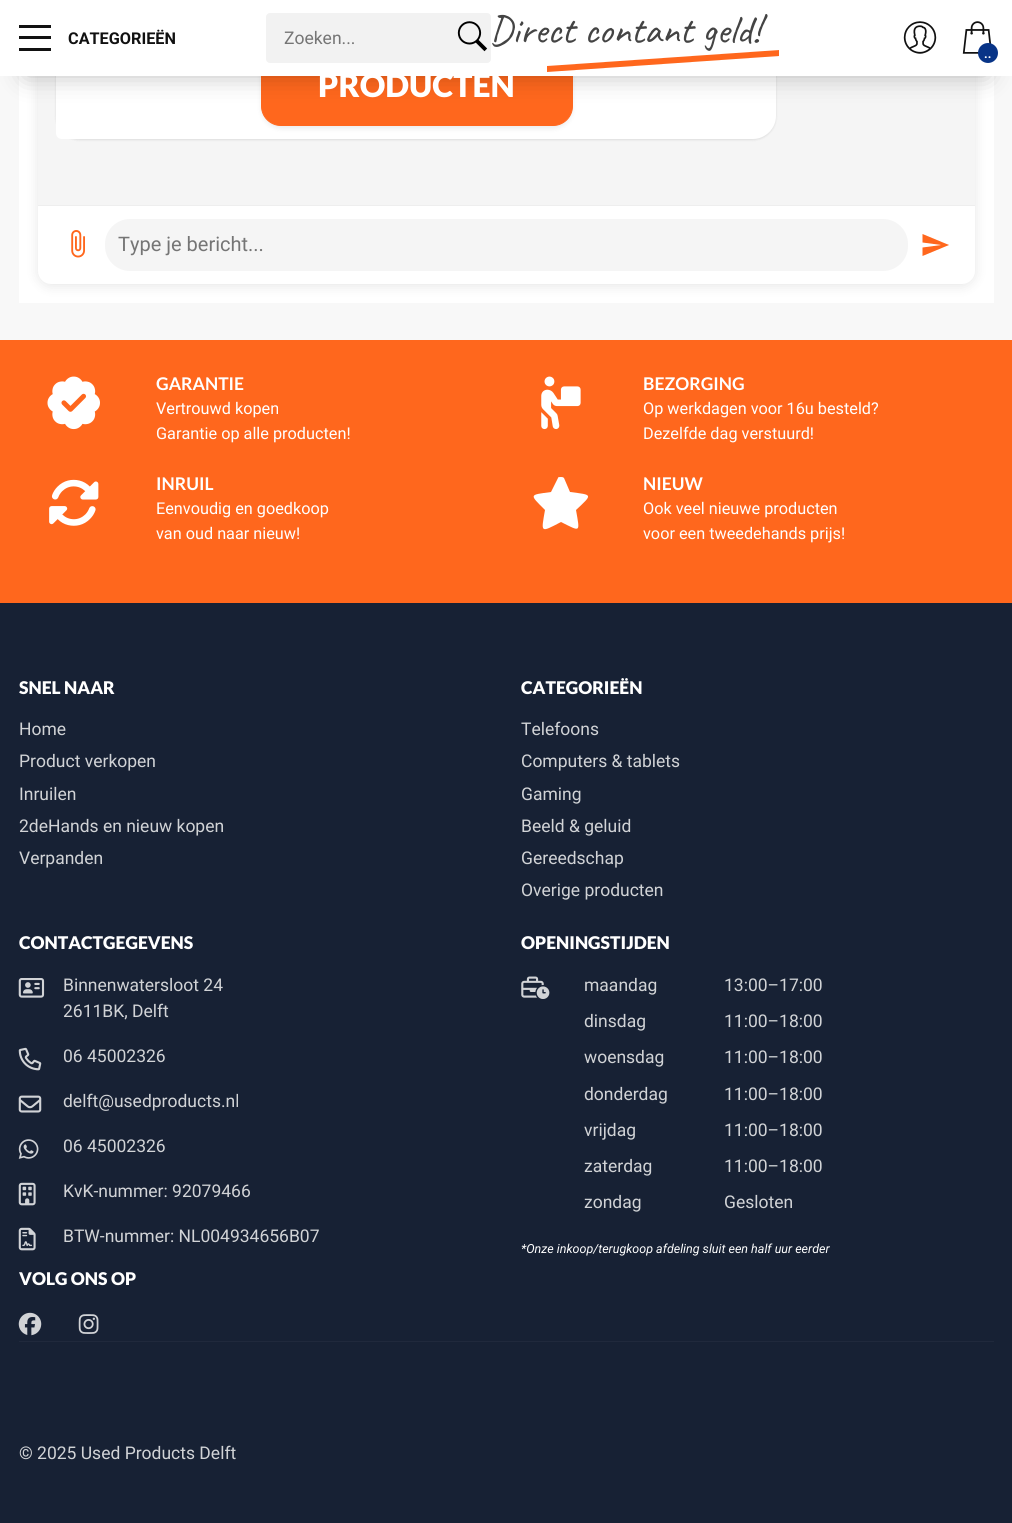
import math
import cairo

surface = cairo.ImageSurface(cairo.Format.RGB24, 1012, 1523)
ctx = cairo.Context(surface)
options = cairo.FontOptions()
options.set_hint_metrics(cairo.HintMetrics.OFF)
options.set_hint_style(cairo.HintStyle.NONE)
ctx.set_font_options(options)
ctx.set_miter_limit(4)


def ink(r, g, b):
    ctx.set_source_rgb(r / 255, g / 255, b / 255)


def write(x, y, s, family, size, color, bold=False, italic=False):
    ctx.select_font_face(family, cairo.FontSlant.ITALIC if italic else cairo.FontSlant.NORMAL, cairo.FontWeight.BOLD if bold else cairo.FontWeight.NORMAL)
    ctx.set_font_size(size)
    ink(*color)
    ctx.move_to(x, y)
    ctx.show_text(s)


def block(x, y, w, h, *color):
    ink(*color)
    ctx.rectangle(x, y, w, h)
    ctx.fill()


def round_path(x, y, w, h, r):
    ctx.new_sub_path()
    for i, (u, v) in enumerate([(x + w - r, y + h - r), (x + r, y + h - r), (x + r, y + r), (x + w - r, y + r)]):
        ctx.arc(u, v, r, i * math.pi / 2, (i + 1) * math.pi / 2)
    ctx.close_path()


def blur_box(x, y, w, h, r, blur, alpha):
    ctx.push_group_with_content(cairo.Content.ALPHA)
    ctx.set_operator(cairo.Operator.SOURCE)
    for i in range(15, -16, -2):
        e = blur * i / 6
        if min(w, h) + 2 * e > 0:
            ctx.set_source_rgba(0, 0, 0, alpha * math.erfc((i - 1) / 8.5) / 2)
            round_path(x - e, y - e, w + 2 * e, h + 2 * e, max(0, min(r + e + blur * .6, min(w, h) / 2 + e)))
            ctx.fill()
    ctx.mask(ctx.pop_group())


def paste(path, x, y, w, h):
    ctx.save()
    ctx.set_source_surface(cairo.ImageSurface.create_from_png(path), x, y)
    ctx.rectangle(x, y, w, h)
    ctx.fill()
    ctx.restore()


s1 = dict(family="Roboto", size=16.25, color=(17, 17, 17), bold=True)
s2 = dict(family="Roboto", size=17.5, color=(117, 117, 117))
s3 = dict(family="Caveat", size=40, color=(68, 68, 68))
s4 = dict(family="Roboto", size=12.5, color=(255, 255, 255), bold=True)
s5 = dict(family="Lato Black", size=32, color=(255, 255, 255))
s6 = dict(family="Roboto", size=20, color=(117, 117, 117))
s7 = dict(family="Lato", size=17.5, color=(255, 255, 255), bold=True)
s8 = dict(family="Roboto", size=16.25, color=(255, 255, 255))
s9 = dict(family="Lato Black", size=17.5, color=(255, 255, 255))
s10 = dict(family="Roboto", size=17.5, color=(209, 211, 214))
s11 = dict(family="Roboto", size=12.5, color=(255, 255, 255), italic=True)

ink(23, 33, 52)
ctx.paint()
block(0, 76, 1012, 264, 248, 248, 248)
block(19, 76, 975, 227, 255, 255, 255)
ink(0, 0, 0)
blur_box(38, -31, 937, 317, 13, 6, 0.1)
block(38, 76, 937, 129, 245, 245, 245)
ink(0, 0, 0)
blur_box(56, -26, 720, 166, 23, 1, 0.1)
ink(255, 255, 255)
ctx.new_path()
ctx.move_to(79, -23)
ctx.line_to(753, -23)
ctx.curve_to(765.5, -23, 776, -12.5, 776, 0)
ctx.line_to(776, 116)
ctx.curve_to(776, 128.5, 765.5, 139, 753, 139)
ctx.line_to(62, 139)
ctx.curve_to(58.5, 139, 56, 136.5, 56, 133)
ctx.line_to(56, 0)
ctx.curve_to(56, -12.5, 66.5, -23, 79, -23)
ctx.close_path()
ctx.fill()
ink(0, 0, 0)
blur_box(261, 9, 312, 120, 20, 2.5, 0.07)
ink(255, 103, 29)
round_path(261.5, 6.5, 311, 119, 19.5)
ctx.fill_preserve()
ctx.set_line_width(1)
ctx.stroke()
ink(0, 0, 0)
blur_box(25, 50, 963, 26, 0, 12.5, 0.25)
block(0, 0, 1012, 76, 255, 255, 255)
block(19, 36, 32, 3, 17, 17, 17)
block(19, 25, 32, 3, 17, 17, 17)
block(19, 48, 32, 3, 17, 17, 17)
write(68, 44, "CATEGORIEËN", **s1)
ink(242, 242, 242)
round_path(266, 13, 225, 50, 4)
ctx.fill()
write(284, 44, "Zoeken...", **s2)
paste("pic1.png", 457, 21, 31, 31)
write(489, 43, "Direct contant geld!", **s3)
ink(255, 103, 29)
ctx.new_path()
ctx.move_to(547, 66)
ctx.line_to(779, 50)
ctx.line_to(779, 56)
ctx.line_to(547, 72)
ctx.close_path()
ctx.fill()
paste("pic2.png", 903, 21, 34, 33)
paste("pic3.png", 962, 21, 30, 33)
ink(8, 52, 135)
ctx.arc(988, 53, 10, 0, 2 * math.pi)
ctx.fill()
write(984, 58, "..", **s4)
write(318, 97, "PRODUCTEN", **s5)
ctx.new_path()
ctx.move_to(38, 205)
ctx.line_to(975, 205)
ctx.line_to(975, 271)
ctx.curve_to(975, 278, 969, 284, 962, 284)
ctx.line_to(51, 284)
ctx.curve_to(44, 284, 38, 278, 38, 271)
ctx.close_path()
ctx.fill()
block(38, 205, 937, 1, 238, 238, 238)
paste("pic4.png", 71, 230, 14, 28)
ink(245, 245, 245)
round_path(105, 219, 803, 52, 25)
ctx.fill()
write(118, 251, "Type je bericht...", **s6)
ink(255, 103, 29)
ctx.new_path()
ctx.move_to(922.5, 256)
ctx.line_to(949, 245)
ctx.line_to(922.5, 234)
ctx.line_to(922.5, 242.5)
ctx.line_to(941, 245)
ctx.line_to(922.5, 247.5)
ctx.close_path()
ctx.fill()
block(0, 340, 1012, 263, 255, 103, 29)
paste("pic5.png", 47, 376, 53, 54)
write(156, 390, "GARANTIE", **s7)
write(156, 414, "Vertrouwd kopen", **s8)
write(156, 439, "Garantie op alle producten!", **s8)
paste("pic6.png", 541, 376, 40, 54)
write(643, 390, "BEZORGING", **s7)
write(643, 414, "Op werkdagen voor 16u besteld?", **s8)
write(643, 439, "Dezelfde dag verstuurd!", **s8)
paste("pic7.png", 49, 479, 50, 47)
write(156, 490, "INRUIL", **s7)
write(156, 514, "Eenvoudig en goedkoop", **s8)
write(156, 539, "van oud naar nieuw!", **s8)
ctx.new_path()
ctx.move_to(564, 478)
ctx.curve_to(563, 477, 562, 477, 561, 477)
ctx.curve_to(559, 477, 558, 477, 558, 478)
ctx.line_to(551, 492)
ctx.curve_to(529, 495, 529, 494, 545, 510)
ctx.curve_to(541, 533, 540, 533, 561, 522)
ctx.curve_to(581, 532, 580, 533, 576, 510)
ctx.curve_to(593, 494, 593, 495, 570, 492)
ctx.close_path()
ctx.fill()
write(643, 490, "NIEUW", **s7)
write(643, 514, "Ook veel nieuwe producten", **s8)
write(643, 539, "voor een tweedehands prijs!", **s8)
write(19, 694, "SNEL NAAR", **s9)
write(19, 735, "Home", **s10)
write(19, 767, "Product verkopen", **s10)
write(19, 800, "Inruilen", **s10)
write(19, 832, "2deHands en nieuw kopen", **s10)
write(19, 864, "Verpanden", **s10)
write(521, 694, "CATEGORIEËN", **s9)
write(521, 735, "Telefoons", **s10)
write(521, 767, "Computers & tablets", **s10)
write(521, 800, "Gaming", **s10)
write(521, 832, "Beeld & geluid", **s10)
write(521, 864, "Gereedschap", **s10)
write(521, 896, "Overige producten", **s10)
write(19, 949, "CONTACTGEGEVENS", **s9)
paste("pic8.png", 18, 978, 27, 20)
write(63, 991, "Binnenwatersloot 24", **s10)
write(63, 1017, "2611BK, Delft", **s10)
paste("pic9.png", 18, 1047, 24, 24)
write(63, 1062, "06 45002326", **s10)
paste("pic10.png", 18, 1095, 24, 18)
write(63, 1107, "delft@usedproducts.nl", **s10)
paste("pic11.png", 18, 1139, 21, 20)
write(63, 1152, "06 45002326", **s10)
paste("pic12.png", 18, 1182, 18, 24)
write(63, 1197, "KvK-nummer: 92079466", **s10)
paste("pic13.png", 18, 1227, 18, 24)
write(63, 1242, "BTW-nummer: NL004934656B07", **s10)
write(19, 1285, "VOLG ONS OP", **s9)
paste("pic14.png", 18, 1312, 24, 24)
paste("pic15.png", 78, 1314, 21, 20)
write(521, 949, "OPENINGSTIJDEN", **s9)
paste("pic16.png", 521, 976, 29, 23)
write(584, 991, "maandag", **s10)
write(724, 991, "13:00–17:00", **s10)
write(584, 1027, "dinsdag", **s10)
write(724, 1027, "11:00–18:00", **s10)
write(584, 1063, "woensdag", **s10)
write(724, 1063, "11:00–18:00", **s10)
write(584, 1100, "donderdag", **s10)
write(724, 1100, "11:00–18:00", **s10)
write(584, 1136, "vrijdag", **s10)
write(724, 1136, "11:00–18:00", **s10)
write(584, 1172, "zaterdag", **s10)
write(724, 1172, "11:00–18:00", **s10)
write(584, 1208, "zondag", **s10)
write(724, 1208, "Gesloten", **s10)
write(521, 1253, "*Onze inkoop/terugkoop afdeling sluit een half uur eerder", **s11)
block(19, 1341, 975, 1, 32, 41, 60)
write(19, 1459, "© 2025 Used Products Delft", **s10)
surface.write_to_png("screenshot.png")
